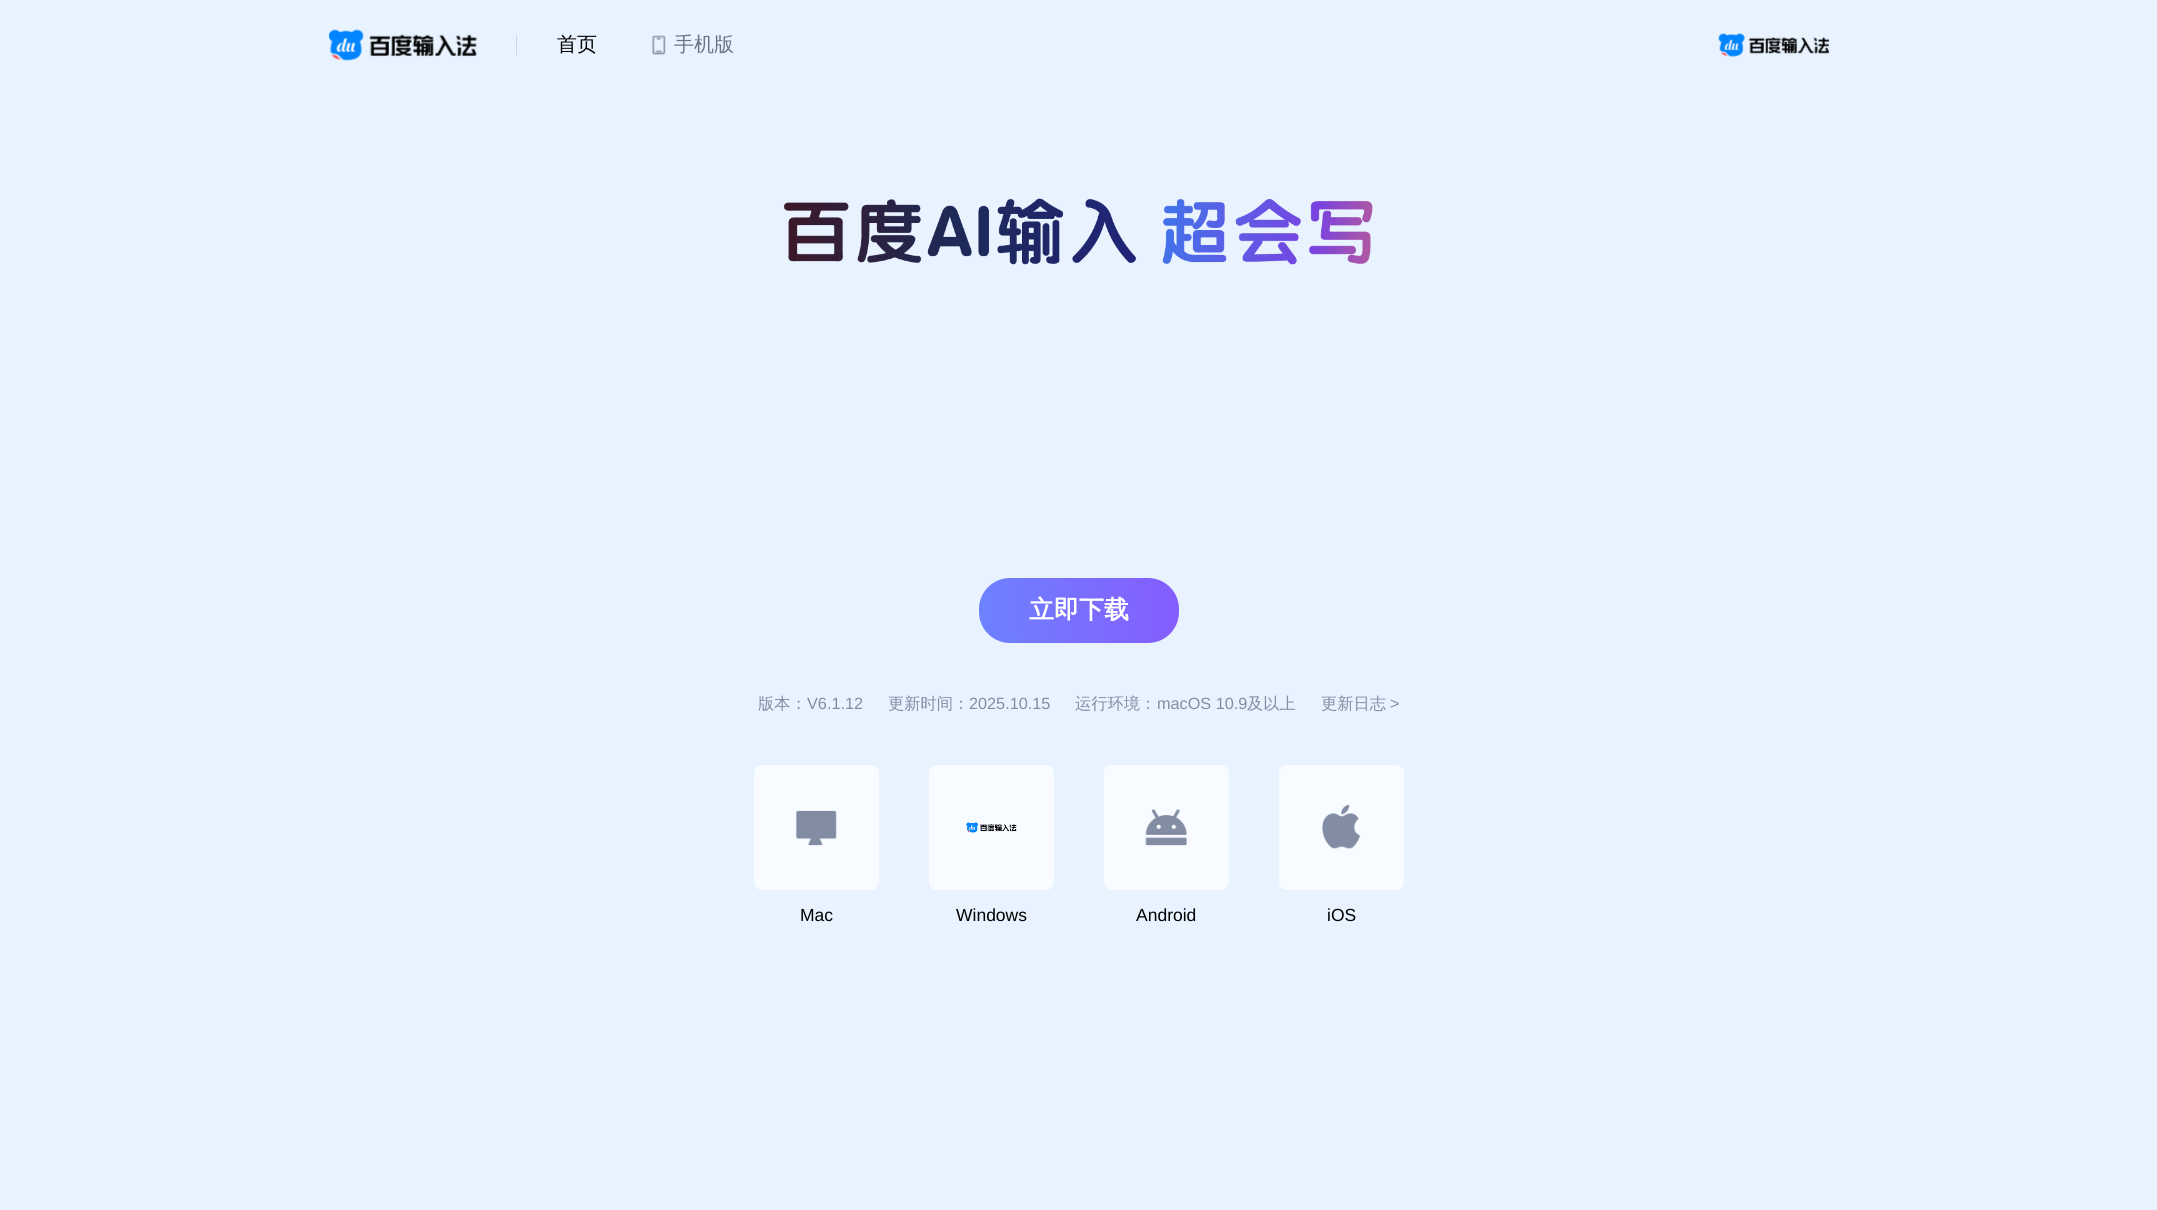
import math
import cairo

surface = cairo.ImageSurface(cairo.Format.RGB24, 2157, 1210)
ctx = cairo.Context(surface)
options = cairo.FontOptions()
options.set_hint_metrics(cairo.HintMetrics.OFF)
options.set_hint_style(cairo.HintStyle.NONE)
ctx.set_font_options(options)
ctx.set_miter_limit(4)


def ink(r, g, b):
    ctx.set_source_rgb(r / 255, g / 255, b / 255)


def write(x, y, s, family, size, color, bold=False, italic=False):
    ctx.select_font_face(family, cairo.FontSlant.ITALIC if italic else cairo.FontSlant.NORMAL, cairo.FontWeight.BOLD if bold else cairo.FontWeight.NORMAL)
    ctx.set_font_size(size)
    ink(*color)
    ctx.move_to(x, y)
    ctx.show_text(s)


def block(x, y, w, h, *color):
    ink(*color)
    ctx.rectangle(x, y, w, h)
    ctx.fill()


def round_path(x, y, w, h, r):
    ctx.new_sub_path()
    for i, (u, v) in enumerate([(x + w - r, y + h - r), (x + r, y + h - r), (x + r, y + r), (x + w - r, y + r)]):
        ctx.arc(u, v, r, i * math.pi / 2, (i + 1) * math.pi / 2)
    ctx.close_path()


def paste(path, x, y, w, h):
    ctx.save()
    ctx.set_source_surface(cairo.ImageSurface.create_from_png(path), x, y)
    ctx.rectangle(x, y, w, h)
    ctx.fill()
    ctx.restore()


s1 = dict(family="WenQuanYi Zen Hei Medium", size=20, color=(0, 0, 0))
s2 = dict(family="WenQuanYi Zen Hei Medium", size=20, color=(108, 115, 131))
s3 = dict(family="WenQuanYi Zen Hei", size=25, color=(255, 255, 255), bold=True)
s4 = dict(family="WenQuanYi Zen Hei Medium", size=16.25, color=(130, 141, 164))
s5 = dict(family="Liberation Sans", size=16.25, color=(130, 141, 164))
s6 = dict(family="Liberation Sans", size=17.5, color=(0, 0, 0))

ink(233, 243, 255)
ctx.paint()
paste("pic1.png", 329, 29, 148, 32)
block(516, 35, 1, 20, 205, 214, 224)
write(557, 51, "首页", **s1)
paste("pic2.png", 651, 35, 15, 20)
write(674, 51, "手机版", **s2)
paste("pic3.png", 1718, 33, 111, 24)
paste("pic4.png", 783, 198, 590, 67)
gradient = cairo.LinearGradient(977, 615, 1180, 605)
gradient.add_color_stop_rgba(0, 0.427, 0.51, 1, 1)
gradient.add_color_stop_rgba(1, 0.525, 0.361, 1, 1)
ctx.set_source(gradient)
round_path(979, 578, 200, 65, 31)
ctx.fill()
write(1029, 618, "立即下载", **s3)
write(758, 709, "版本：", **s4)
write(807, 709, "V6.1.12", **s5)
write(888, 709, "更新时间：", **s4)
write(969, 709, "2025.10.15", **s5)
write(1075, 709, "运行环境：", **s4)
write(1157, 709, "macOS 10.9", **s5)
write(1247, 709, "及以上", **s4)
write(1321, 709, "更新日志", **s4)
write(1390, 709, ">", **s5)
ink(248, 251, 255)
round_path(754, 765, 125, 125, 8)
ctx.fill()
paste("pic5.png", 796, 810, 41, 36)
write(800, 921, "Mac", **s6)
ink(248, 251, 255)
round_path(929, 765, 125, 125, 8)
ctx.fill()
paste("pic6.png", 966, 822, 51, 11)
write(956, 921, "Windows", **s6)
ink(248, 251, 255)
round_path(1104, 765, 125, 125, 8)
ctx.fill()
paste("pic7.png", 1145, 809, 42, 37)
write(1136, 921, "Android", **s6)
ink(248, 251, 255)
round_path(1279, 765, 125, 125, 8)
ctx.fill()
paste("pic8.png", 1322, 804, 39, 45)
write(1327, 921, "iOS", **s6)
surface.write_to_png("screenshot.png")
